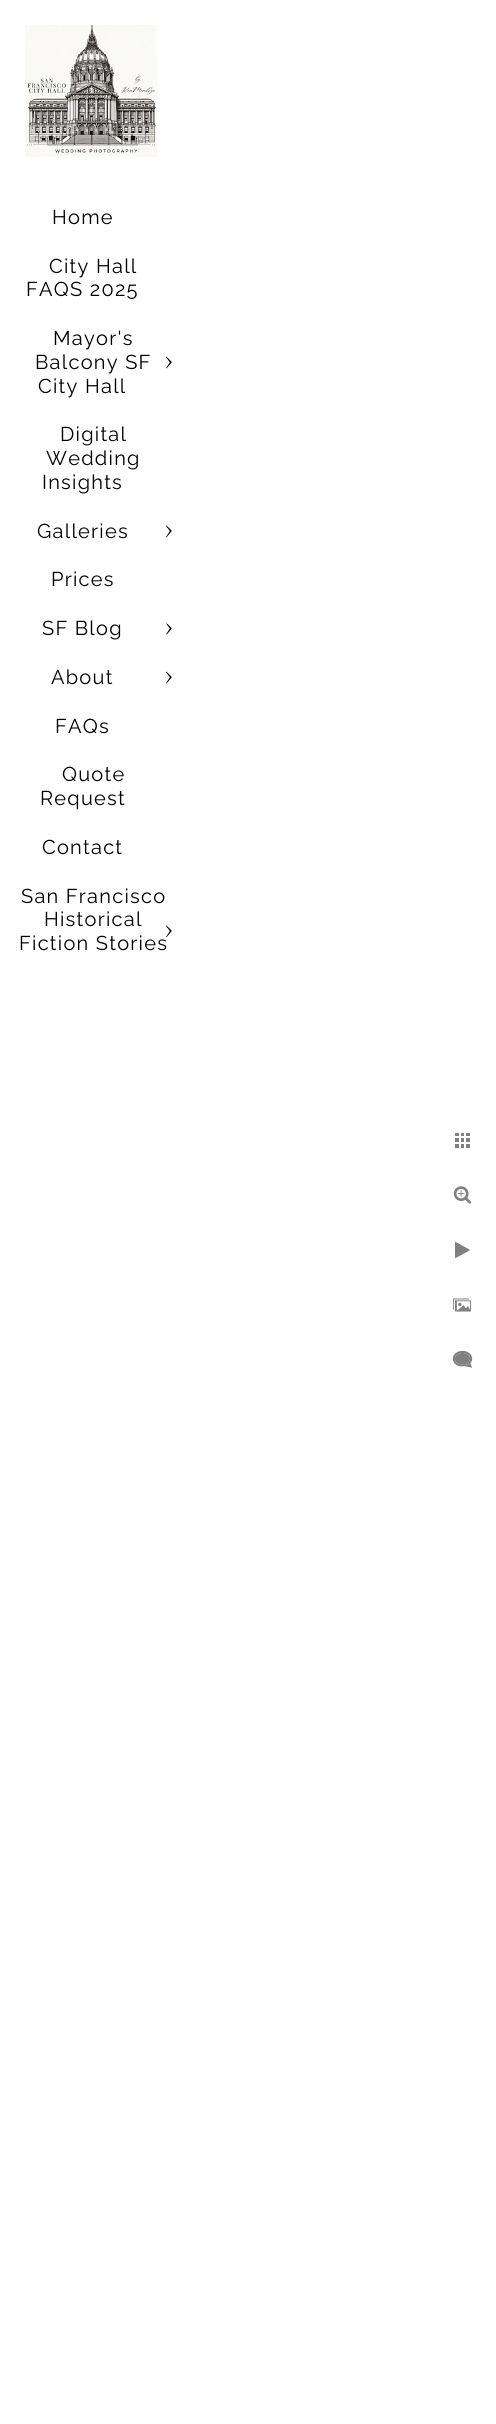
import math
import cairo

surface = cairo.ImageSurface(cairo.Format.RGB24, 496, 2424)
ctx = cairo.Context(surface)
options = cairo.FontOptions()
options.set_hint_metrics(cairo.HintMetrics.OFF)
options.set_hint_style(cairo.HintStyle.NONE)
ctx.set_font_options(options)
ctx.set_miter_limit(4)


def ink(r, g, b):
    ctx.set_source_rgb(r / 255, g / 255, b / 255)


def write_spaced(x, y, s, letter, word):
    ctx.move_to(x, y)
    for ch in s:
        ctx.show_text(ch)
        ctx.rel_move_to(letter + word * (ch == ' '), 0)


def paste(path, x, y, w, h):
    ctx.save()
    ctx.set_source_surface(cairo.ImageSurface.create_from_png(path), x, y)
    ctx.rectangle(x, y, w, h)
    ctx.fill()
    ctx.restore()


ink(255, 255, 255)
ctx.paint()
paste("pic1.png", 25, 25, 133, 132)
ctx.select_font_face("Raleway Thin")
ctx.set_font_size(20)
ink(0, 0, 0)
write_spaced(52, 224, "Home", 1.25, 0)
write_spaced(49, 273, "City Hall", 1.25, 0)
write_spaced(26, 296, "FAQS 2025", 1.25, 0)
write_spaced(53, 345, "Mayor's", 1.25, 0)
write_spaced(35, 369, "Balcony SF", 1.25, 0)
paste("pic2.png", 166, 356, 6, 13)
write_spaced(38, 393, "City Hall", 1.25, 0)
write_spaced(60, 441, "Digital", 1.25, 0)
write_spaced(46, 465, "Wedding", 1.25, 0)
write_spaced(42, 489, "Insights", 1.25, 0)
write_spaced(37, 538, "Galleries", 1.25, 0)
paste("pic3.png", 166, 525, 6, 13)
write_spaced(51, 586, "Prices", 1.25, 0)
write_spaced(42, 635, "SF Blog", 1.25, 0)
paste("pic4.png", 166, 623, 6, 12)
write_spaced(51, 684, "About", 1.25, 0)
paste("pic2.png", 166, 671, 6, 13)
write_spaced(55, 733, "FAQs", 1.25, 0)
write_spaced(62, 781, "Quote", 1.25, 0)
write_spaced(40, 805, "Request", 1.25, 0)
write_spaced(42, 854, "Contact", 1.25, 0)
write_spaced(21, 903, "San Francisco", 1.25, 0)
write_spaced(44, 926, "Historical", 1.25, 0)
write_spaced(19, 950, "Fiction Stories", 1.25, 0)
paste("pic3.png", 166, 925, 6, 13)
paste("pic5.png", 455, 1133, 15, 15)
paste("pic6.png", 453, 1186, 19, 18)
paste("pic7.png", 455, 1241, 15, 18)
paste("pic8.png", 453, 1298, 18, 14)
paste("pic9.png", 452, 1350, 21, 18)
surface.write_to_png("screenshot.png")
